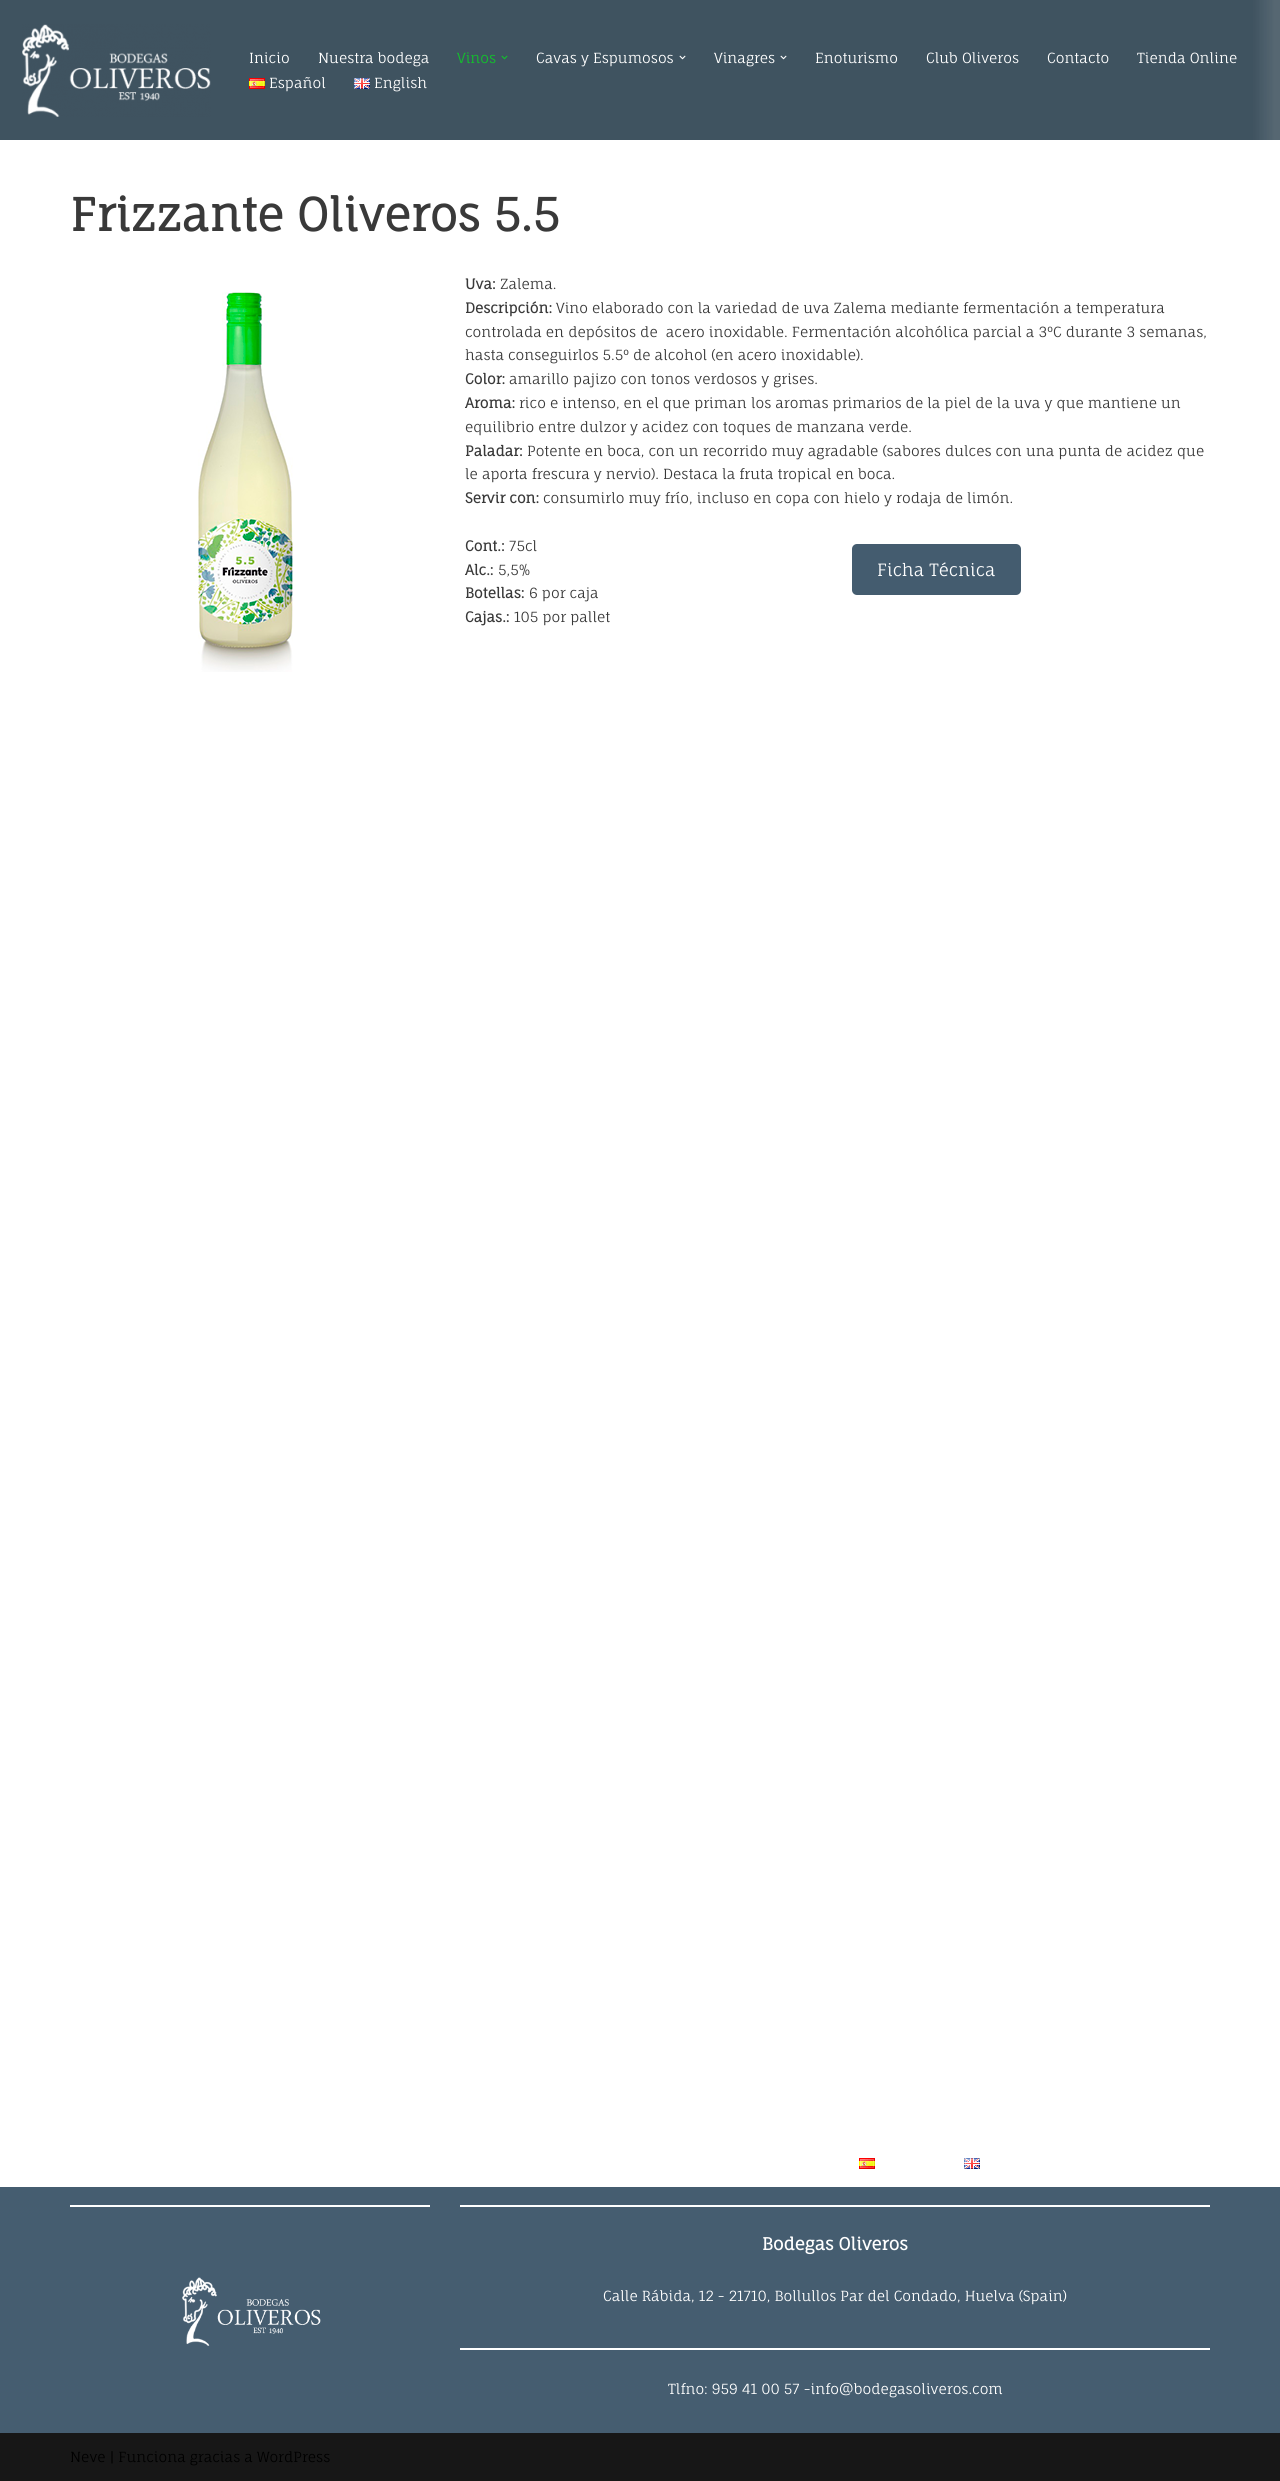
import math
import cairo

surface = cairo.ImageSurface(cairo.Format.RGB24, 1280, 2481)
ctx = cairo.Context(surface)
options = cairo.FontOptions()
options.set_hint_metrics(cairo.HintMetrics.OFF)
options.set_hint_style(cairo.HintStyle.NONE)
ctx.set_font_options(options)
ctx.set_miter_limit(4)


def ink(r, g, b):
    ctx.set_source_rgb(r / 255, g / 255, b / 255)


def write(x, y, s, family, size, color, bold=False, italic=False):
    ctx.select_font_face(family, cairo.FontSlant.ITALIC if italic else cairo.FontSlant.NORMAL, cairo.FontWeight.BOLD if bold else cairo.FontWeight.NORMAL)
    ctx.set_font_size(size)
    ink(*color)
    ctx.move_to(x, y)
    ctx.show_text(s)


def block(x, y, w, h, *color):
    ink(*color)
    ctx.rectangle(x, y, w, h)
    ctx.fill()


def round_path(x, y, w, h, r):
    ctx.new_sub_path()
    for i, (u, v) in enumerate([(x + w - r, y + h - r), (x + r, y + h - r), (x + r, y + r), (x + w - r, y + r)]):
        ctx.arc(u, v, r, i * math.pi / 2, (i + 1) * math.pi / 2)
    ctx.close_path()


def paste(path, x, y, w, h):
    ctx.save()
    ctx.set_source_surface(cairo.ImageSurface.create_from_png(path), x, y)
    ctx.rectangle(x, y, w, h)
    ctx.fill()
    ctx.restore()


s1 = dict(family="Fauna One", size=14, color=(255, 255, 255))
s2 = dict(family="Fauna One", size=14, color=(17, 194, 43))
s3 = dict(family="Fauna One", size=45, color=(57, 57, 57), bold=True)
s4 = dict(family="Fauna One", size=14, color=(57, 57, 57), bold=True)
s5 = dict(family="Fauna One", size=14, color=(57, 57, 57))
s6 = dict(family="Fauna One", size=17, color=(255, 255, 255))
s7 = dict(family="Fauna One", size=17, color=(255, 255, 255), bold=True)
s8 = dict(family="Fauna One", size=14, color=(0, 0, 0))

ink(255, 255, 255)
ctx.paint()
block(0, 0, 1280, 140, 156, 164, 168)
paste("pic1.png", 0, 0, 1280, 140)
paste("pic2.png", 22, 24, 189, 93)
write(249, 63, "Inicio", **s1)
write(318, 63, "Nuestra bodega", **s1)
write(457, 63, "Vinos", **s2)
paste("pic3.png", 501, 55, 7, 5)
write(536, 63, "Cavas y Espumosos", **s1)
paste("pic4.png", 679, 55, 7, 5)
write(714, 63, "Vinagres", **s1)
paste("pic4.png", 780, 55, 7, 5)
write(815, 63, "Enoturismo", **s1)
write(926, 63, "Club Oliveros", **s1)
write(1047, 63, "Contacto", **s1)
write(1137, 63, "Tienda Online", **s1)
paste("pic5.png", 249, 78, 16, 11)
write(269, 88, "Español", **s1)
paste("pic6.png", 354, 78, 16, 11)
write(374, 88, "English", **s1)
write(70, 231, "Frizzante Oliveros 5.5", **s3)
paste("pic7.png", 198, 292, 95, 380)
write(465, 289, "Uva:", **s4)
write(500, 289, "Zalema.", **s5)
write(465, 313, "Descripción:", **s4)
write(556, 313, "Vino elaborado con la variedad de uva Zalema mediante fermentación a temperatura", **s5)
write(465, 337, "controlada en depósitos de  acero inoxidable. Fermentación alcohólica parcial a 3ºC durante 3 semanas,", **s5)
write(465, 360, "hasta conseguirlos 5.5º de alcohol (en acero inoxidable).", **s5)
write(465, 384, "Color:", **s4)
write(509, 384, "amarillo pajizo con tonos verdosos y grises.", **s5)
write(465, 408, "Aroma:", **s4)
write(519, 408, "rico e intenso, en el que priman los aromas primarios de la piel de la uva y que mantiene un", **s5)
write(465, 432, "equilibrio entre dulzor y acidez con toques de manzana verde.", **s5)
write(465, 456, "Paladar:", **s4)
write(527, 456, "Potente en boca, con un recorrido muy agradable (sabores dulces con una punta de acidez que", **s5)
write(465, 479, "le aporta frescura y nervio). Destaca la fruta tropical en boca.", **s5)
write(465, 503, "Servir con:", **s4)
write(543, 503, "consumirlo muy frío, incluso en copa con hielo y rodaja de limón.", **s5)
write(465, 551, "Cont.:", **s4)
write(509, 551, "75cl", **s5)
write(465, 575, "Alc.:", **s4)
write(498, 575, "5,5%", **s5)
write(465, 598, "Botellas:", **s4)
write(529, 598, "6 por caja", **s5)
write(465, 622, "Cajas.:", **s4)
write(514, 622, "105 por pallet", **s5)
ink(68, 92, 111)
round_path(852, 544, 169, 51, 5)
ctx.fill()
write(877, 576, "Ficha Técnica", **s6)
paste("pic5.png", 859, 2158, 16, 11)
paste("pic6.png", 964, 2158, 16, 11)
block(0, 2187, 1280, 246, 69, 93, 112)
block(70, 2205, 360, 2, 255, 255, 255)
paste("pic8.png", 182, 2277, 139, 69)
block(460, 2205, 750, 2, 255, 255, 255)
write(762, 2250, "Bodegas Oliveros", **s7)
write(603, 2301, "Calle Rábida, 12 - 21710, Bollullos Par del Condado, Huelva (Spain)", **s1)
block(460, 2348, 750, 2, 255, 255, 255)
write(668, 2394, "Tlfno: 959 41 00 57 -info@bodegasoliveros.com", **s1)
block(0, 2433, 1280, 48, 23, 23, 23)
write(70, 2462, "Neve | Funciona gracias a WordPress", **s8)
surface.write_to_png("screenshot.png")
